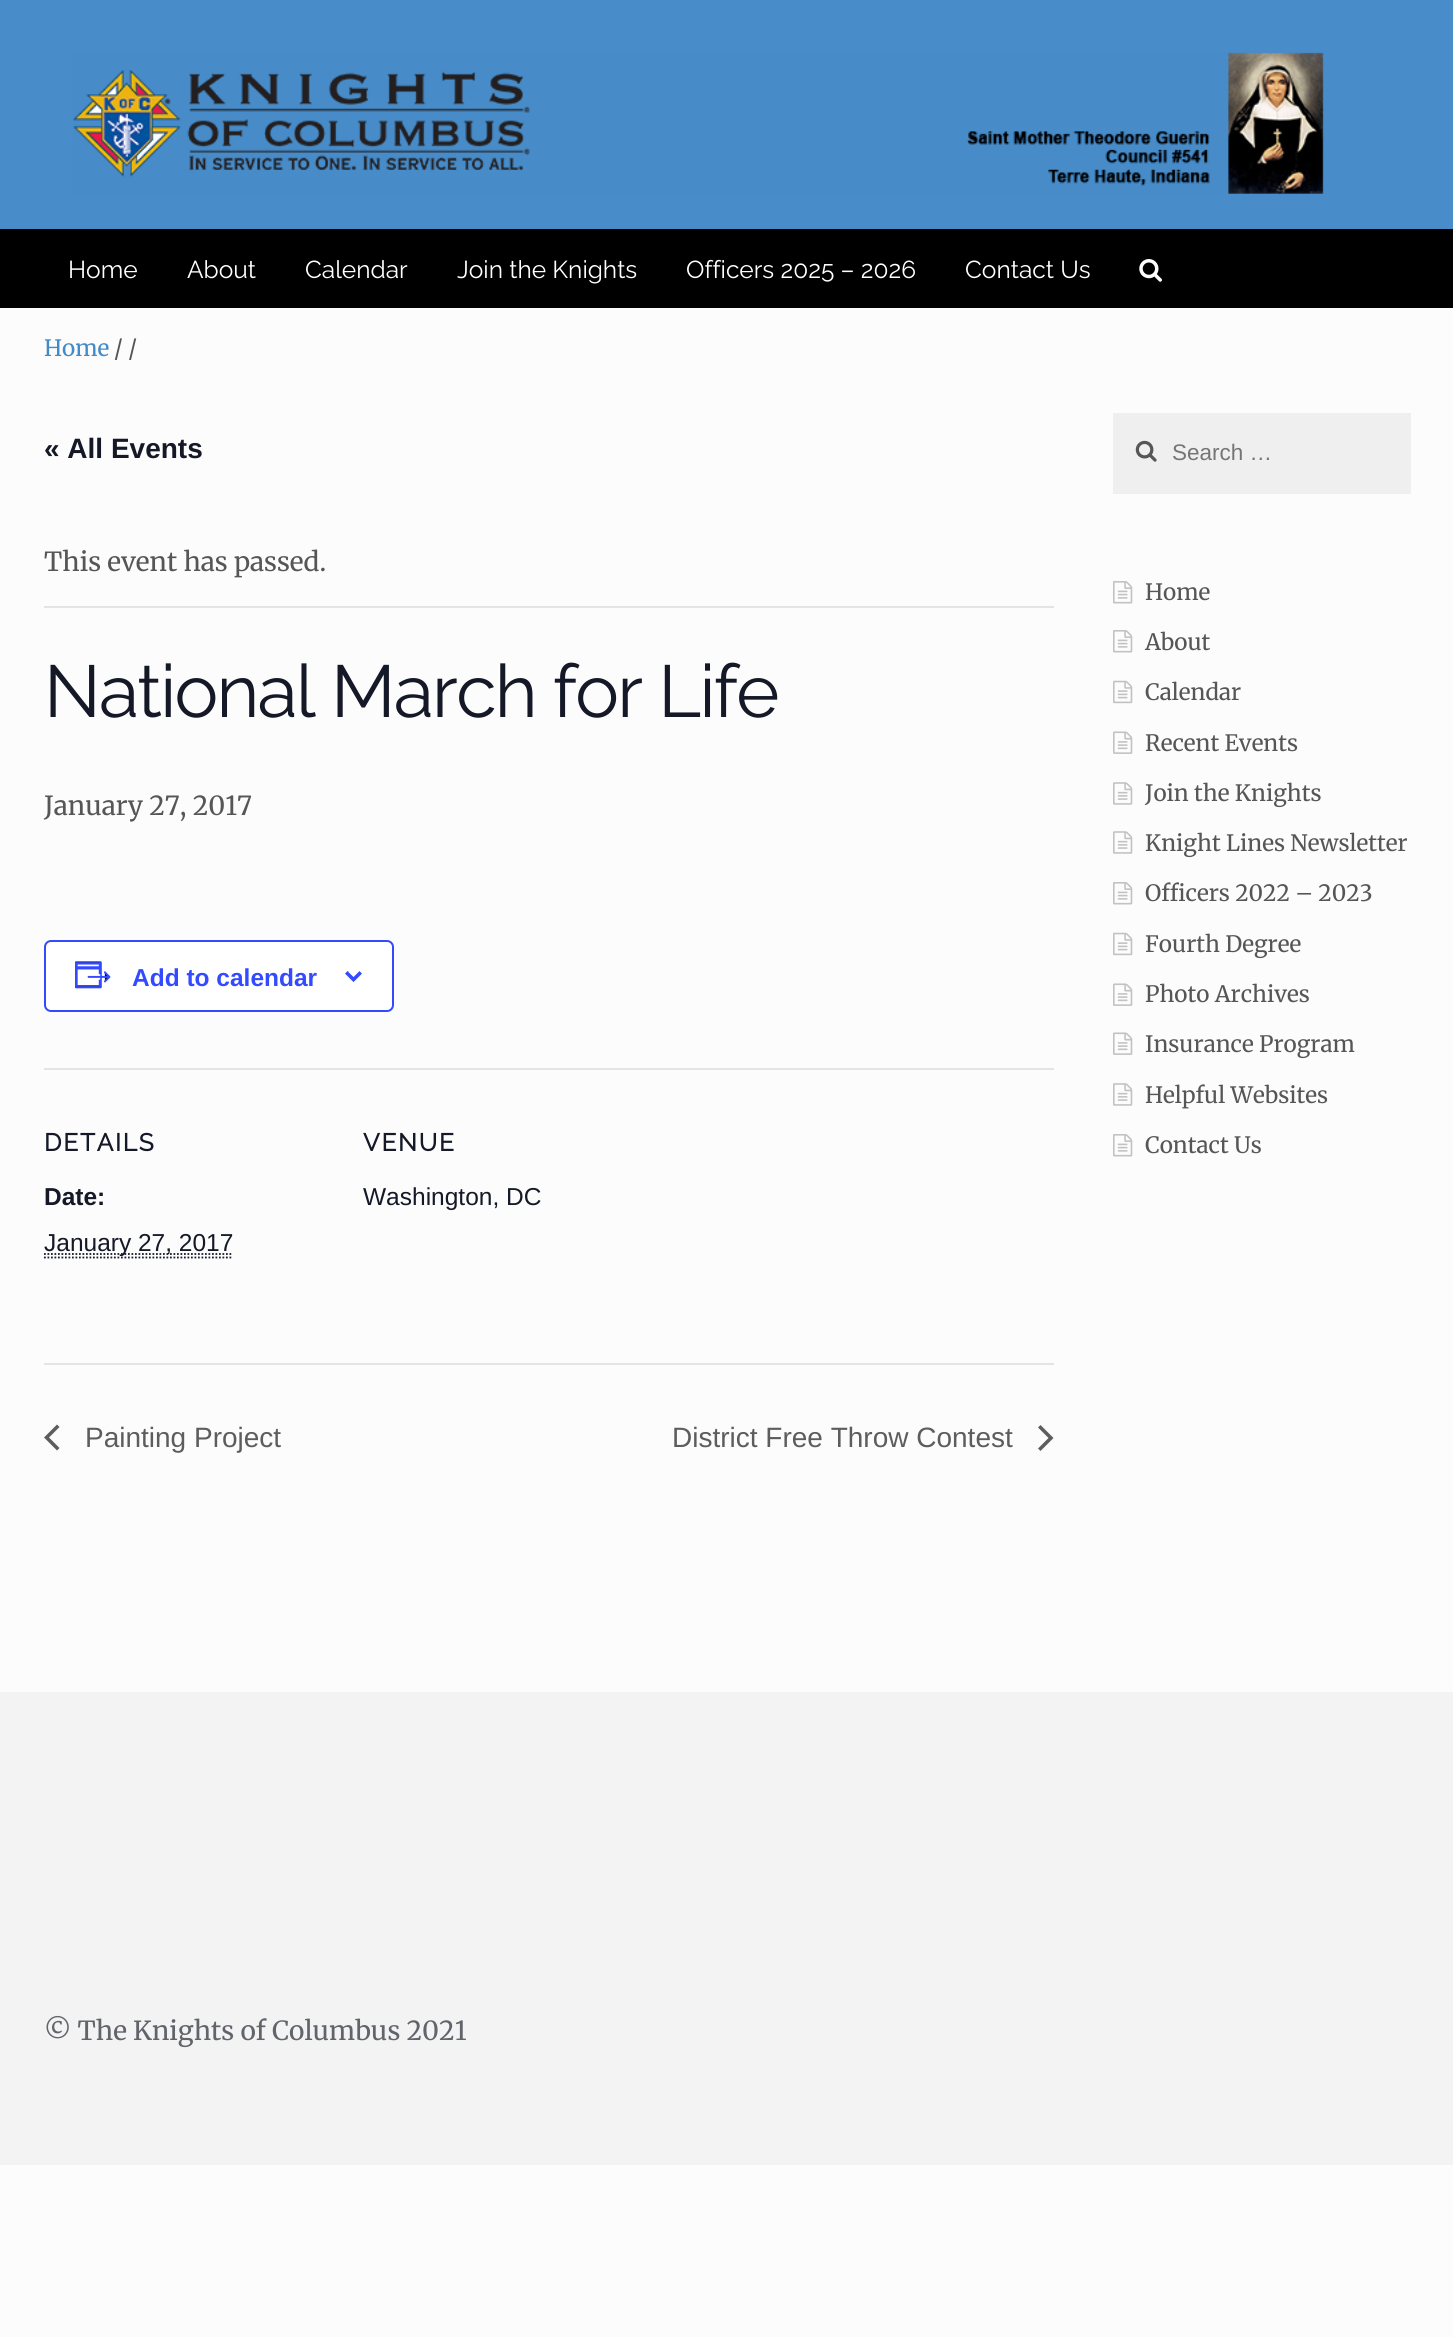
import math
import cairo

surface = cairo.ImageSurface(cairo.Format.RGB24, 1453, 2337)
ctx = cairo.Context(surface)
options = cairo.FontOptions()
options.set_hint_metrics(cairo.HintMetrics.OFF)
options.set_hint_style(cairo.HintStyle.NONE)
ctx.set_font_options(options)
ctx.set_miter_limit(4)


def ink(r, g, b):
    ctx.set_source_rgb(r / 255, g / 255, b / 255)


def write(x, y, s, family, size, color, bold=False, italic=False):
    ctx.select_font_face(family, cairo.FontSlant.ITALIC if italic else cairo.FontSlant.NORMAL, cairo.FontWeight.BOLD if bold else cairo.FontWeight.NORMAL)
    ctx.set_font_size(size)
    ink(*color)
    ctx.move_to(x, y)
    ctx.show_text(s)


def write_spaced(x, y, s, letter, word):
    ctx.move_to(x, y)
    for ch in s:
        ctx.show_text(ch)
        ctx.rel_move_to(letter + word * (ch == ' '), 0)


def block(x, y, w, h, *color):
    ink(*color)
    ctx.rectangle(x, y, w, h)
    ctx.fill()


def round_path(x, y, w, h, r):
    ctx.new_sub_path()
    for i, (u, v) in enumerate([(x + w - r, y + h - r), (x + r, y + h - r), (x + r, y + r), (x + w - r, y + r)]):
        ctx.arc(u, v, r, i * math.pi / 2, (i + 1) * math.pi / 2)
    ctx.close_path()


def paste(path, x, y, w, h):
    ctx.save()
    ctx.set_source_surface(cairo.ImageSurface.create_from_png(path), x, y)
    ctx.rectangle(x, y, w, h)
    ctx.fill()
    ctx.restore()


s1 = dict(family="Raleway Thin", size=24.5, color=(255, 255, 255))
s2 = dict(family="Merriweather Light", size=22.5, color=(66, 139, 202))
s3 = dict(family="Merriweather Light", size=22.5, color=(86, 86, 86))
s4 = dict(family="Liberation Sans", size=28, color=(20, 24, 39), bold=True)
s5 = dict(family="Merriweather Light", size=26.25, color=(86, 86, 86))
s6 = dict(family="Liberation Sans", size=24.5, color=(51, 74, 255), bold=True)
s7 = dict(family="Liberation Sans", size=24.5, color=(20, 24, 39), bold=True)
s8 = dict(family="Liberation Sans", size=24.5, color=(20, 24, 39))
s9 = dict(family="Liberation Sans", size=28, color=(93, 93, 93))
s10 = dict(family="Liberation Sans", size=22.5, color=(117, 117, 117))
s11 = dict(family="Merriweather Light", size=26.25, color=(97, 101, 107))

ink(252, 252, 252)
ctx.paint()
block(0, 0, 1453, 229, 72, 141, 202)
paste("pic1.png", 73, 52, 1251, 142)
block(0, 229, 1453, 79, 0, 0, 0)
write(68, 278, "Home", **s1)
write(187, 278, "About", **s1)
write(305, 278, "Calendar", **s1)
write(457, 278, "Join the Knights", **s1)
write(686, 278, "Officers 2025 – 2026", **s1)
write(965, 278, "Contact Us", **s1)
paste("pic2.png", 1139, 259, 23, 23)
write(44, 356, "Home", **s2)
write(114, 356, "/ /", **s3)
write(44, 458, "« All Events", **s4)
block(44, 606, 1010, 2, 228, 228, 228)
write(44, 571, "This event has passed.", **s5)
ctx.select_font_face("Raleway Thin")
ctx.set_font_size(73.5)
ink(20, 24, 39)
write_spaced(44, 717, "National March for Life", -1.75, 0)
write(44, 815, "January 27, 2017", **s5)
ink(255, 255, 255)
round_path(45, 941, 348, 70, 6)
ctx.fill_preserve()
ink(51, 74, 255)
ctx.stroke()
paste("pic3.png", 75, 961, 36, 28)
write(132, 986, "Add to calendar", **s6)
paste("pic4.png", 345, 971, 17, 11)
block(44, 1068, 1010, 2, 228, 228, 228)
ctx.select_font_face("Raleway", cairo.FontSlant.NORMAL, cairo.FontWeight.BOLD)
ink(20, 24, 39)
write_spaced(44, 1151, "DETAILS", 1.75, 0)
write(44, 1205, "Date:", **s7)
ctx.new_path()
ctx.move_to(44, 1257.5)
ctx.line_to(233, 1257.5)
ctx.set_line_width(1.8)
ctx.set_dash([1.75, 1.75])
ctx.stroke()
ctx.new_path()
ctx.move_to(44, 1254)
ctx.line_to(233, 1254)
ctx.stroke()
write(44, 1251, "January 27, 2017", **s8)
ctx.select_font_face("Raleway", cairo.FontSlant.NORMAL, cairo.FontWeight.BOLD)
write_spaced(363, 1151, "VENUE", 1.75, 0)
write(363, 1205, "Washington, DC", **s8)
block(44, 1363, 1010, 2, 228, 228, 228)
ink(93, 93, 93)
ctx.new_path()
ctx.move_to(59.5, 1448)
ctx.line_to(57, 1450.5)
ctx.line_to(44, 1437.5)
ctx.line_to(57, 1424.5)
ctx.line_to(59.5, 1427)
ctx.line_to(49, 1437.5)
ctx.close_path()
ctx.fill()
write(85, 1447, "Painting Project", **s9)
write(672, 1447, "District Free Throw Contest", **s9)
ctx.new_path()
ctx.move_to(1038, 1427.5)
ctx.line_to(1040.5, 1425)
ctx.line_to(1053.5, 1438)
ctx.line_to(1040.5, 1451)
ctx.line_to(1038, 1448.5)
ctx.line_to(1048.5, 1438)
ctx.close_path()
ctx.fill()
block(1113, 413, 298, 81, 239, 239, 239)
paste("pic5.png", 1135, 440, 22, 22)
write(1172, 460, "Search …", **s10)
paste("pic6.png", 1113, 581, 20, 23)
write(1145, 600, "Home", **s3)
paste("pic6.png", 1113, 630, 20, 23)
write(1145, 650, "About", **s3)
paste("pic7.png", 1113, 680, 20, 24)
write(1145, 700, "Calendar", **s3)
paste("pic8.png", 1113, 731, 20, 23)
write(1145, 751, "Recent Events", **s3)
paste("pic9.png", 1113, 782, 20, 23)
write(1145, 801, "Join the Knights", **s3)
paste("pic9.png", 1113, 831, 20, 23)
write(1145, 851, "Knight Lines Newsletter", **s3)
paste("pic6.png", 1113, 882, 20, 23)
write(1145, 901, "Officers 2022 – 2023", **s3)
paste("pic7.png", 1113, 932, 20, 24)
write(1145, 952, "Fourth Degree", **s3)
paste("pic8.png", 1113, 983, 20, 23)
write(1145, 1002, "Photo Archives", **s3)
paste("pic8.png", 1113, 1032, 20, 23)
write(1145, 1052, "Insurance Program", **s3)
paste("pic9.png", 1113, 1083, 20, 23)
write(1145, 1103, "Helpful Websites", **s3)
paste("pic6.png", 1113, 1134, 20, 23)
write(1145, 1153, "Contact Us", **s3)
block(0, 1692, 1453, 473, 243, 243, 243)
write(44, 2040, "© The Knights of Columbus 2021", **s11)
surface.write_to_png("screenshot.png")
